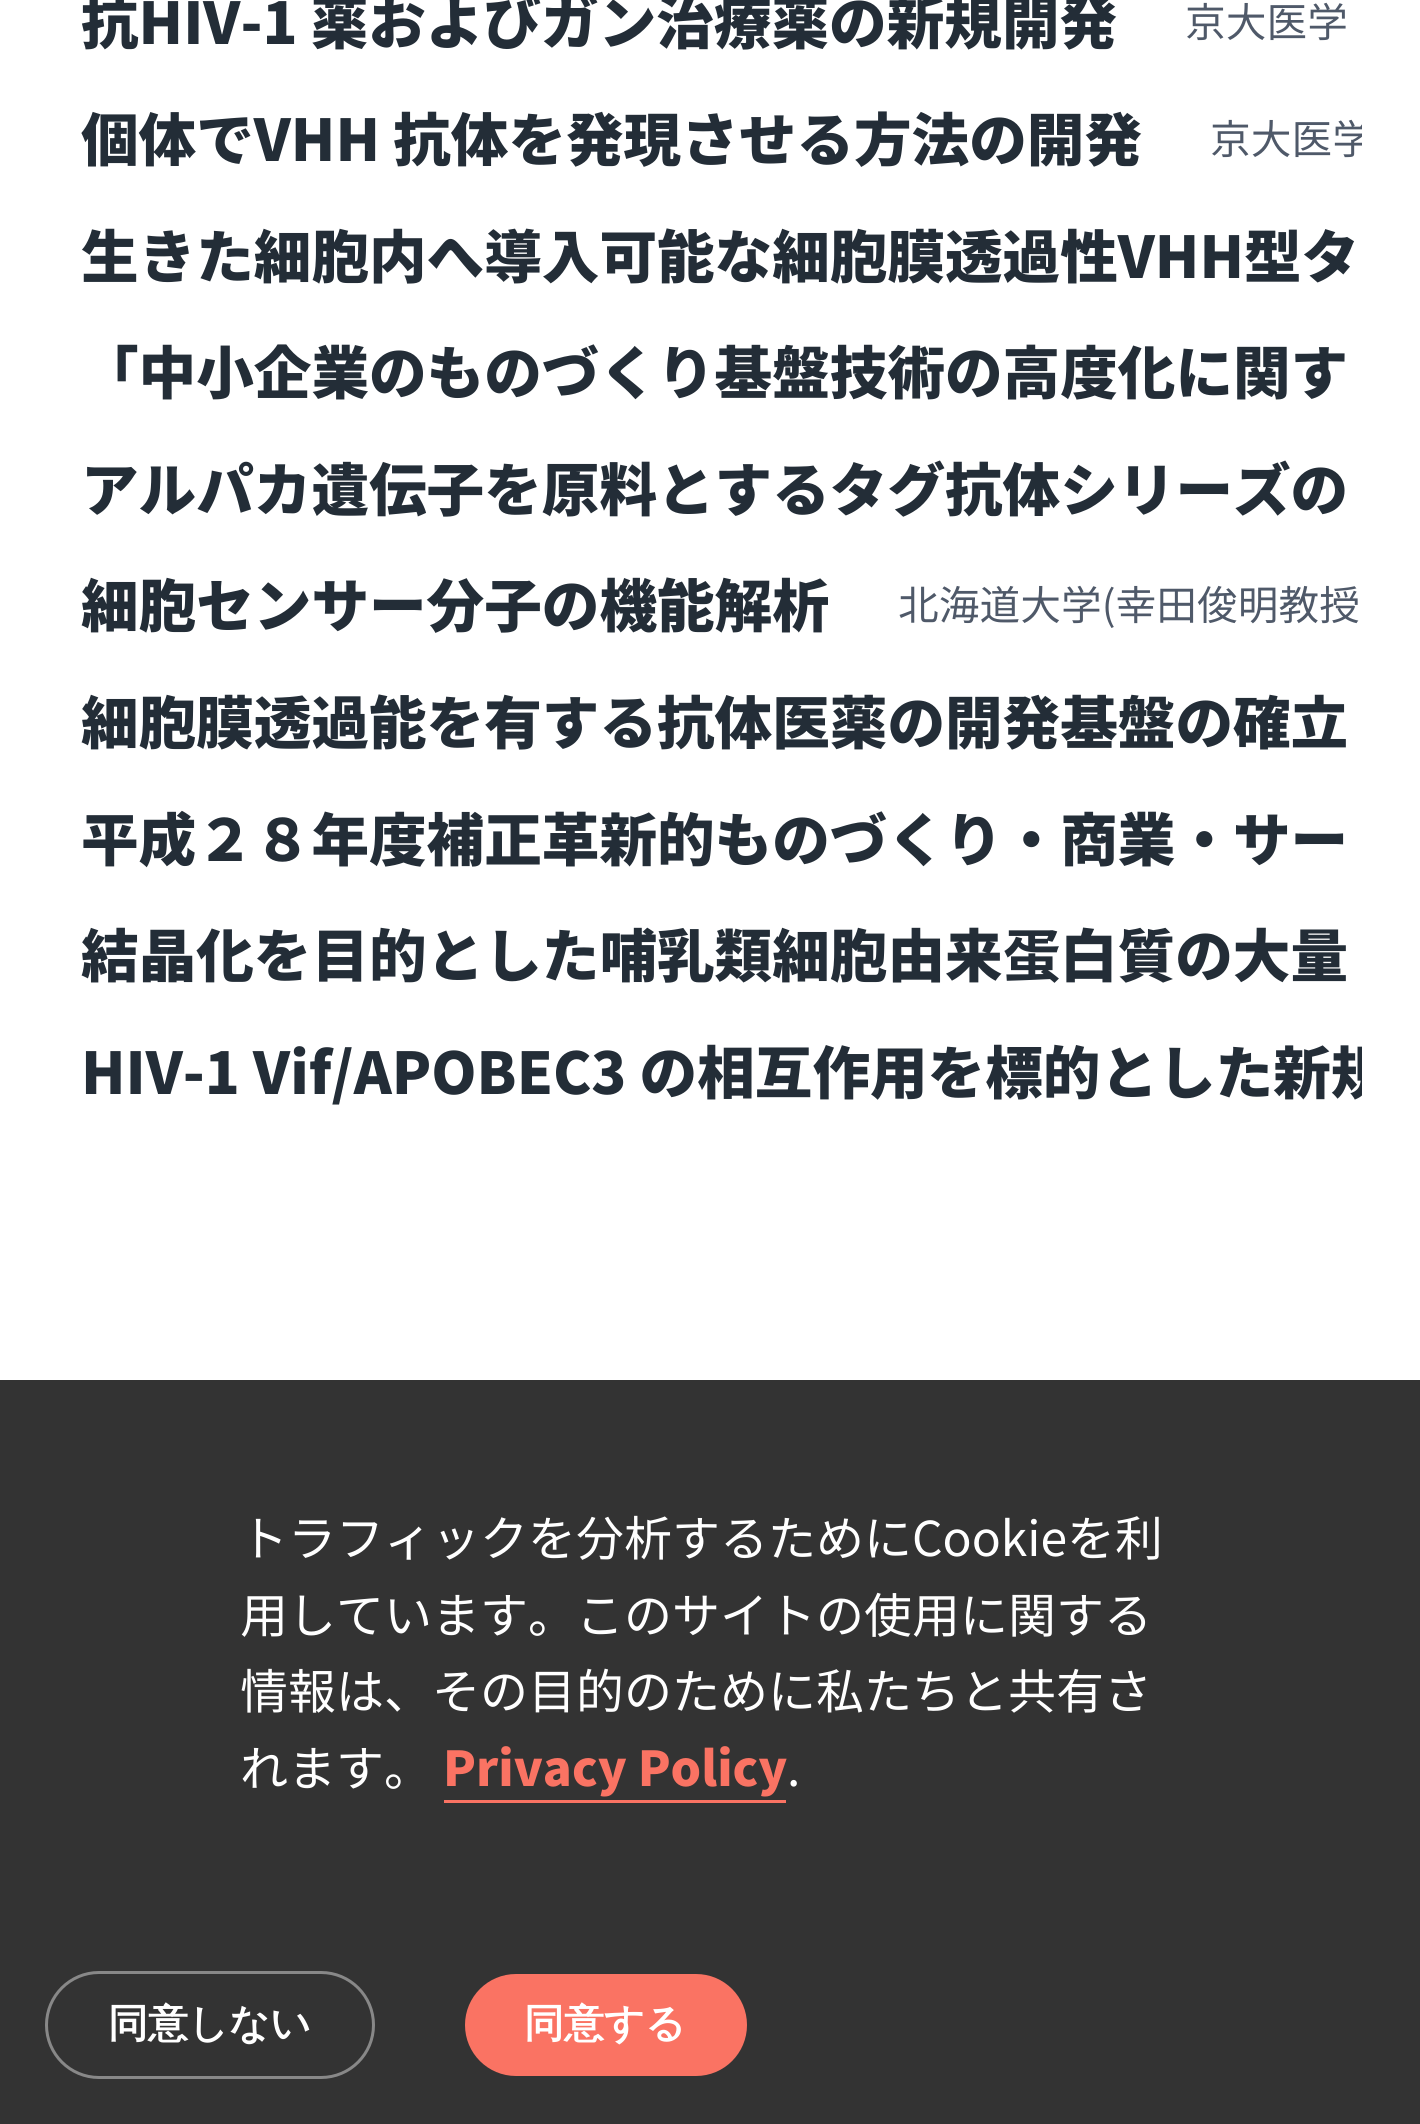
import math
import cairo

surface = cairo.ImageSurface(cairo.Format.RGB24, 1420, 2124)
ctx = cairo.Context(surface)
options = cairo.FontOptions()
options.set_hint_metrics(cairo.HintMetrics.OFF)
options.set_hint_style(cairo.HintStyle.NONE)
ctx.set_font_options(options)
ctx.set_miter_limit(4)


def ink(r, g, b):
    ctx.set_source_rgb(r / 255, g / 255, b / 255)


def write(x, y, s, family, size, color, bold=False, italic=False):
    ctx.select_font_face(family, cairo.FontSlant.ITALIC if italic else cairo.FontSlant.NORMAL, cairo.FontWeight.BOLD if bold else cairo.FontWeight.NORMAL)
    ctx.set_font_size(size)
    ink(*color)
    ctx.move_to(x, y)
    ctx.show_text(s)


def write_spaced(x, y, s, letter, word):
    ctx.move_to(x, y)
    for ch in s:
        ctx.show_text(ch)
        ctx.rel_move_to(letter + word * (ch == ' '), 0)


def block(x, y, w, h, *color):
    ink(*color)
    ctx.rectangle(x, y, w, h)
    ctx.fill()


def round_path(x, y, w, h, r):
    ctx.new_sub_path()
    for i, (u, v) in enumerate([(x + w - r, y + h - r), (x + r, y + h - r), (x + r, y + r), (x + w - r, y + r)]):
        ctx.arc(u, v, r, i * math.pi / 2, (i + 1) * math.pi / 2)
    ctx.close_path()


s1 = dict(family="Noto Sans JP Black", size=57.6, color=(35, 45, 55))
s2 = dict(family="Noto Sans JP", size=40.75, color=(79, 89, 105))
s3 = dict(family="Noto Sans JP", size=57.6, color=(35, 45, 55), bold=True)
s4 = dict(family="Noto Sans JP", size=48, color=(255, 255, 255))
s5 = dict(family="Noto Sans JP Black", size=48, color=(250, 115, 99))
s6 = dict(family="WenQuanYi Zen Hei", size=40, color=(255, 255, 255), bold=True)

ink(255, 255, 255)
ctx.paint()
write(81, 44, "抗HIV-1 薬およびガン治療薬の新規開発", **s1)
write(1185, 37, "京大医学", **s2)
write(81, 161, "個体でVHH 抗体を発現させる方法の開発", **s1)
ctx.save()
ctx.rectangle(1185, 105, 177, 66)
ctx.clip()
write(1210, 154, "京大医学", **s2)
ctx.restore()
write(81, 278, "生きた細胞内へ導入可能な細胞膜透過性VHH型タ", **s1)
write(81, 394, "「中小企業のものづくり基盤技術の高度化に関す", **s1)
write(81, 511, "アルパカ遺伝子を原料とするタグ抗体シリーズの", **s1)
ctx.save()
ctx.rectangle(81, 564, 747, 81)
ctx.clip()
write(81, 627, "細胞センサー分子の機能解析", **s1)
ctx.restore()
write(898, 620, "北海道大学(幸田俊明教授", **s2)
write(81, 744, "細胞膜透過能を有する抗体医薬の開発基盤の確立", **s1)
write(81, 861, "平成２８年度補正革新的ものづくり・商業・サー", **s1)
write(81, 977, "結晶化を目的とした哺乳類細胞由来", **s1)
write(1003, 977, "蛋", **s3)
ctx.select_font_face("Noto Sans JP Black")
write_spaced(1060, 977, "白質の大量", 0, -1)
ctx.save()
ctx.rectangle(81, 1032, 1281, 81)
ctx.clip()
write(81, 1094, "HIV-1 Vif/APOBEC3 の相互作用を標的とした新規", **s1)
ctx.restore()
block(0, 1380, 1420, 744, 51, 51, 51)
write(240, 1556, "トラフィックを分析するためにCookieを利", **s4)
write(240, 1633, "用しています。このサイトの使用に関する", **s4)
write(240, 1709, "情報は、その目的のために私たちと共有さ", **s4)
write(240, 1786, "れます。", **s4)
write(443, 1786, "Privacy Policy", **s5)
block(444, 1800, 342, 3, 250, 115, 99)
write(787, 1786, ".", **s4)
round_path(46.5, 1972.5, 327, 105, 52.5)
ink(136, 136, 136)
ctx.set_line_width(3)
ctx.stroke()
write(108, 2037, "同意しない", **s6)
ink(250, 115, 99)
round_path(465, 1974, 282, 102, 51)
ctx.fill()
write(524, 2037, "同意する", **s6)
surface.write_to_png("screenshot.png")
